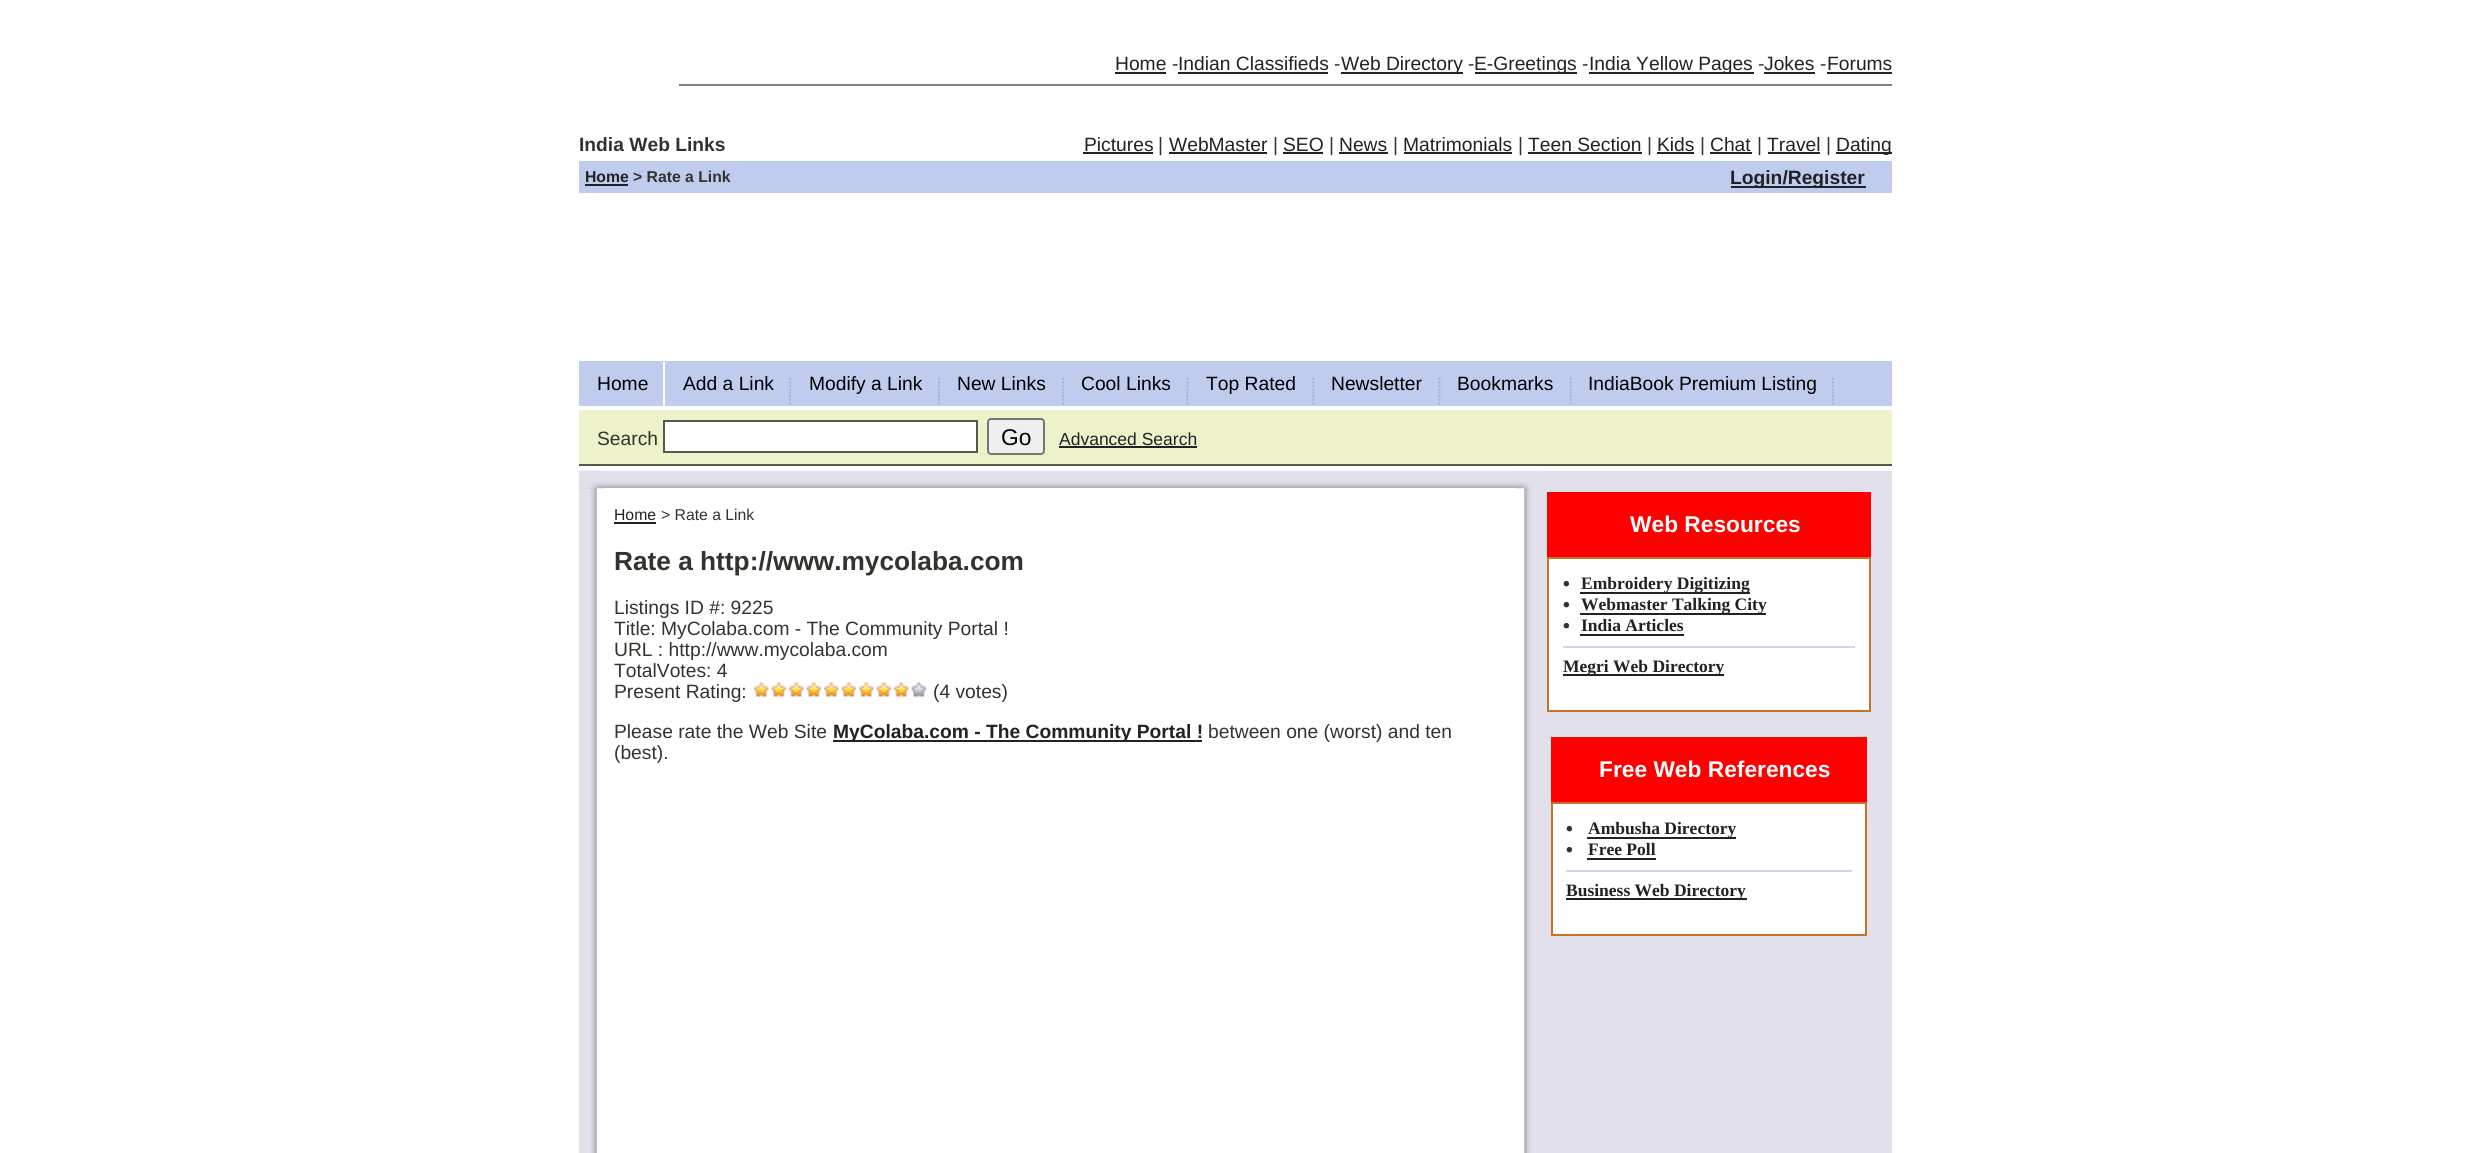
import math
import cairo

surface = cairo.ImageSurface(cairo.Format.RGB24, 2470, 1153)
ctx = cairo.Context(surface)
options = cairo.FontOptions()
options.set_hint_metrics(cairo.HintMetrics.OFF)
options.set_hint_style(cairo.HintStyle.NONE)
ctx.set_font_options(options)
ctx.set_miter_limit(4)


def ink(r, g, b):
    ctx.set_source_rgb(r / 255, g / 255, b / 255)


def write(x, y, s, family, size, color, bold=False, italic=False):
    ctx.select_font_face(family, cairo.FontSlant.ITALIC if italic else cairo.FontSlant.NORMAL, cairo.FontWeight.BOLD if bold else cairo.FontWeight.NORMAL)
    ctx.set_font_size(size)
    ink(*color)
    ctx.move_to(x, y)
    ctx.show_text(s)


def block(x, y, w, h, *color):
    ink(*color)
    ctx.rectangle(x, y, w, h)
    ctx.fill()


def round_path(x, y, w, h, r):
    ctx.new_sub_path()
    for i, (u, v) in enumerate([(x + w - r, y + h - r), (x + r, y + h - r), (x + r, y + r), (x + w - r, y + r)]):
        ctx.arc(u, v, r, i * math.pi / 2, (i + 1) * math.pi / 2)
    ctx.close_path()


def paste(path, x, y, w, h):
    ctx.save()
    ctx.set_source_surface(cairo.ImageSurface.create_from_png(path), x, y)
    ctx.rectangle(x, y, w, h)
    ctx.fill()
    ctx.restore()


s1 = dict(family="Liberation Sans", size=19.25, color=(33, 33, 38))
s2 = dict(family="Liberation Sans", size=19.25, color=(51, 51, 46))
s3 = dict(family="Liberation Sans", size=19.25, color=(51, 51, 46), bold=True)
s4 = dict(family="Liberation Sans", size=15.75, color=(33, 33, 38), bold=True)
s5 = dict(family="Liberation Sans", size=15.75, color=(51, 51, 46), bold=True)
s6 = dict(family="Liberation Sans", size=19.25, color=(33, 33, 38), bold=True)
s7 = dict(family="Liberation Sans", size=19.25, color=(0, 0, 0))
s8 = dict(family="Liberation Sans", size=22.75, color=(0, 0, 0))
s9 = dict(family="Liberation Sans", size=17.5, color=(33, 33, 38))
s10 = dict(family="Liberation Sans", size=15.75, color=(33, 33, 38))
s11 = dict(family="Liberation Sans", size=15.75, color=(51, 51, 46))
s12 = dict(family="Liberation Sans", size=26.25, color=(51, 51, 46), bold=True)
s13 = dict(family="Liberation Sans", size=22.75, color=(255, 255, 255), bold=True)
s14 = dict(family="Liberation Serif", size=17.5, color=(33, 33, 38), bold=True)

ink(255, 255, 255)
ctx.paint()
write(1115, 70, "Home", **s1)
block(1115, 72, 51, 2, 33, 33, 38)
write(1172, 70, "-", **s2)
write(1178, 70, "Indian Classifieds", **s1)
block(1178, 72, 150, 2, 33, 33, 38)
write(1334, 70, "-", **s2)
block(1341, 72, 122, 2, 33, 33, 38)
write(1341, 70, "Web Directory", **s1)
write(1468, 70, "-", **s2)
block(1475, 72, 102, 2, 33, 33, 38)
write(1474, 70, "E-Greetings", **s1)
write(1582, 70, "-", **s2)
block(1589, 72, 165, 2, 33, 33, 38)
write(1589, 70, "India Yellow Pages", **s1)
write(1758, 70, "-", **s2)
write(1764, 70, "Jokes", **s1)
block(1764, 72, 51, 2, 33, 33, 38)
write(1820, 70, "-", **s2)
write(1827, 70, "Forums", **s1)
block(1827, 72, 65, 2, 33, 33, 38)
block(679, 84, 1213, 2, 128, 128, 128)
write(579, 151, "India Web Links", **s3)
write(1084, 151, "Pictures", **s1)
block(1083, 152, 70, 2, 33, 33, 38)
write(1158, 151, "|", **s2)
write(1169, 151, "WebMaster", **s1)
block(1169, 152, 98, 2, 33, 33, 38)
write(1273, 151, "|", **s2)
write(1283, 151, "SEO", **s1)
block(1283, 152, 40, 2, 33, 33, 38)
write(1329, 151, "|", **s2)
write(1339, 151, "News", **s1)
block(1339, 152, 49, 2, 33, 33, 38)
write(1393, 151, "|", **s2)
write(1403, 151, "Matrimonials", **s1)
block(1404, 152, 108, 2, 33, 33, 38)
write(1518, 151, "|", **s2)
write(1528, 151, "Teen Section", **s1)
block(1528, 152, 114, 2, 33, 33, 38)
write(1647, 151, "|", **s2)
write(1657, 151, "Kids", **s1)
block(1657, 152, 37, 2, 33, 33, 38)
write(1700, 151, "|", **s2)
write(1710, 151, "Chat", **s1)
block(1710, 152, 42, 2, 33, 33, 38)
write(1757, 151, "|", **s2)
write(1767, 151, "Travel", **s1)
block(1768, 152, 52, 2, 33, 33, 38)
write(1826, 151, "|", **s2)
block(1836, 152, 56, 2, 33, 33, 38)
write(1836, 151, "Dating", **s1)
block(579, 161, 1313, 32, 192, 204, 238)
write(585, 182, "Home", **s4)
block(585, 184, 43, 2, 33, 33, 38)
write(633, 182, "> Rate a Link", **s5)
block(1731, 186, 135, 2, 33, 33, 38)
write(1730, 184, "Login/Register", **s6)
block(579, 361, 1313, 45, 192, 204, 238)
block(663, 361, 2, 45, 255, 255, 255)
write(597, 390, "Home", **s7)
paste("pic1.png", 789, 378, 2, 27)
write(683, 390, "Add a Link", **s7)
paste("pic2.png", 938, 378, 2, 27)
write(809, 390, "Modify a Link", **s7)
paste("pic1.png", 1062, 378, 2, 27)
write(957, 390, "New Links", **s7)
paste("pic3.png", 1186, 378, 3, 27)
write(1081, 390, "Cool Links", **s7)
paste("pic3.png", 1312, 378, 3, 27)
write(1206, 390, "Top Rated", **s7)
paste("pic3.png", 1438, 378, 3, 27)
write(1331, 390, "Newsletter", **s7)
paste("pic4.png", 1569, 378, 3, 27)
write(1457, 390, "Bookmarks", **s7)
paste("pic1.png", 1832, 378, 2, 27)
write(1588, 390, "IndiaBook Premium Listing", **s7)
block(579, 410, 1313, 54, 237, 242, 203)
block(579, 464, 1313, 2, 87, 89, 75)
write(597, 445, "Search", **s2)
ink(255, 255, 255)
ctx.rectangle(664, 421, 313, 31)
ctx.fill_preserve()
ink(87, 89, 75)
ctx.stroke()
ink(239, 239, 239)
round_path(988, 419, 56, 35, 3)
ctx.fill_preserve()
ink(118, 118, 118)
ctx.stroke()
write(1001, 445, "Go", **s8)
write(1059, 445, "Advanced Search", **s9)
block(1059, 446, 138, 2, 33, 33, 38)
block(579, 471, 1313, 682, 226, 225, 235)
paste("pic5.png", 579, 470, 18, 683)
paste("pic6.png", 579, 470, 963, 19)
block(597, 488, 927, 665, 255, 255, 255)
paste("pic7.png", 579, 470, 27, 19)
paste("pic9.png", 1524, 488, 18, 665)
paste("pic8.png", 1515, 470, 27, 19)
write(614, 520, "Home", **s10)
block(614, 522, 42, 2, 33, 33, 38)
write(661, 520, "> Rate a Link", **s11)
write(614, 570, "Rate a http://www.mycolaba.com", **s12)
write(614, 614, "Listings ID #: 9225", **s2)
write(614, 635, "Title: MyColaba.com - The Community Portal !", **s2)
write(614, 656, "URL : http://www.mycolaba.com", **s2)
write(614, 677, "TotalVotes: 4", **s2)
write(614, 698, "Present Rating:", **s2)
paste("pic10.png", 753, 682, 174, 15)
write(933, 698, "(4 votes)", **s2)
write(614, 738, "Please rate the Web Site", **s2)
block(833, 740, 369, 2, 33, 33, 38)
write(833, 738, "MyColaba.com - The Community Portal !", **s6)
write(1208, 738, "between one (worst) and ten", **s2)
write(614, 759, "(best).", **s2)
block(1547, 492, 324, 65, 255, 0, 0)
write(1630, 532, "Web Resources", **s13)
ctx.rectangle(1548, 558, 322, 153)
ctx.fill_preserve()
ink(195, 116, 39)
ctx.stroke()
write(1563, 590, "•", **s3)
block(1580, 592, 170, 2, 33, 33, 38)
write(1581, 589, "Embroidery Digitizing", **s14)
write(1563, 611, "•", **s3)
block(1580, 613, 186, 2, 33, 33, 38)
write(1581, 610, "Webmaster Talking City", **s14)
write(1563, 632, "•", **s3)
write(1581, 631, "India Articles", **s14)
block(1580, 634, 104, 2, 33, 33, 38)
block(1563, 646, 292, 2, 208, 211, 242)
block(1563, 674, 161, 2, 33, 33, 38)
write(1563, 672, "Megri Web Directory", **s14)
block(1551, 737, 316, 65, 255, 0, 0)
write(1599, 777, "Free Web References", **s13)
ctx.rectangle(1552, 803, 314, 132)
ctx.fill_preserve()
ink(195, 116, 39)
ctx.stroke()
write(1566, 835, "•", **s3)
block(1587, 837, 149, 2, 33, 33, 38)
write(1588, 834, "Ambusha Directory", **s14)
write(1566, 856, "•", **s3)
write(1588, 855, "Free Poll", **s14)
block(1587, 858, 69, 2, 33, 33, 38)
block(1566, 870, 286, 2, 208, 211, 242)
block(1566, 898, 181, 2, 33, 33, 38)
write(1566, 896, "Business Web Directory", **s14)
surface.write_to_png("screenshot.png")
